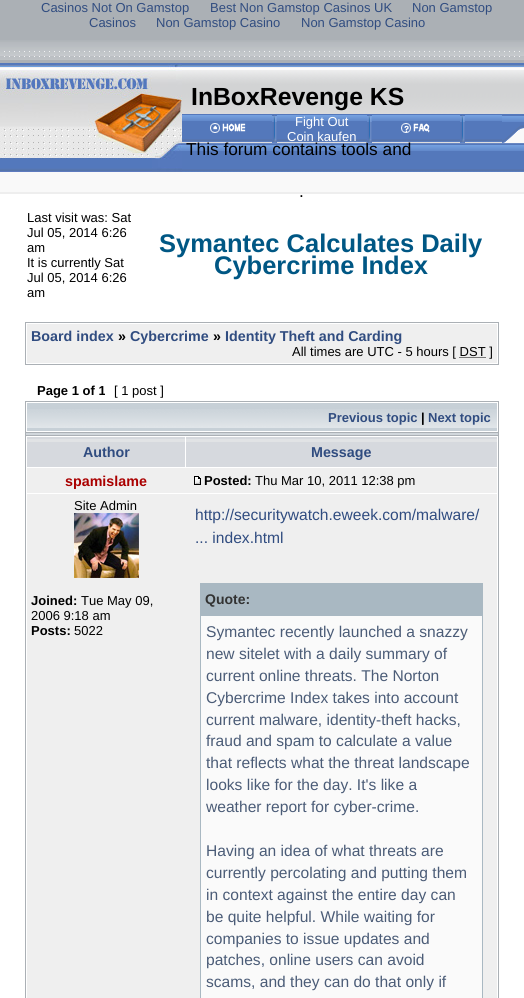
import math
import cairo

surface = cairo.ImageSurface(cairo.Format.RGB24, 524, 998)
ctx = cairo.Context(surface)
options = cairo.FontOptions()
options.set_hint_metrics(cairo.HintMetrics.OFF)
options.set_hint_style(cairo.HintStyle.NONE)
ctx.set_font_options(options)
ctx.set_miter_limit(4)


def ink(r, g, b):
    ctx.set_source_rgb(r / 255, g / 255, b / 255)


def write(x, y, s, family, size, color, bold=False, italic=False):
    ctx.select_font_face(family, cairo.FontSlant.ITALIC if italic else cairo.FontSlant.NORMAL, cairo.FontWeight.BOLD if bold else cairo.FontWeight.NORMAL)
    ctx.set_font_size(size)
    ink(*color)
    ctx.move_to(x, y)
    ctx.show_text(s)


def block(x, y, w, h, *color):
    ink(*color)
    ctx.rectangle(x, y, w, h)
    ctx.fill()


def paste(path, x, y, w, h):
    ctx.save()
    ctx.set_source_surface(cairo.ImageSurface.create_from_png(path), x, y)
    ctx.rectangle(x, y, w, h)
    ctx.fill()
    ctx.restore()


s1 = dict(family="Liberation Sans", size=13, color=(48, 76, 128))
s2 = dict(family="Liberation Sans", size=24.75, color=(0, 0, 0), bold=True)
s3 = dict(family="Liberation Sans", size=17.25, color=(0, 0, 0))
s4 = dict(family="Liberation Sans", size=13, color=(255, 255, 255))
s5 = dict(family="Liberation Sans", size=13, color=(0, 0, 0))
s6 = dict(family="Liberation Sans", size=25.5, color=(0, 87, 132), bold=True)
s7 = dict(family="Liberation Sans", size=14.3, color=(48, 76, 128), bold=True)
s8 = dict(family="Liberation Sans", size=14.3, color=(0, 0, 0), bold=True)
s9 = dict(family="Liberation Sans", size=13, color=(0, 0, 0), bold=True)
s10 = dict(family="Liberation Sans", size=13, color=(48, 76, 128), bold=True)
s11 = dict(family="Liberation Sans", size=14.3, color=(170, 0, 0), bold=True)
s12 = dict(family="Liberation Sans", size=15.6, color=(48, 76, 128))
s13 = dict(family="Liberation Sans", size=14, color=(51, 51, 51), bold=True)
s14 = dict(family="Liberation Sans", size=15.6, color=(75, 92, 119))

ink(171, 176, 181)
ctx.paint()
write(41, 12, "Casinos Not On Gamstop", **s1)
write(210, 12, "Best Non Gamstop Casinos UK", **s1)
write(412, 12, "Non Gamstop", **s1)
write(89, 27, "Casinos", **s1)
write(156, 27, "Non Gamstop Casino", **s1)
write(301, 27, "Non Gamstop Casino", **s1)
block(0, 194, 524, 804, 255, 255, 255)
paste("pic1.png", 0, 40, 524, 23)
paste("pic2.png", 182, 63, 342, 109)
paste("pic3.png", 0, 63, 182, 109)
write(191, 105, "InBoxRevenge KS", **s2)
write(186, 155, "This forum contains tools and", **s3)
write(299, 197, ".", **s3)
paste("pic4.png", 182, 114, 342, 28)
paste("pic5.png", 210, 123, 36, 10)
paste("pic6.png", 272, 115, 5, 28)
write(295, 126, "Fight Out", **s4)
write(287, 141, "Coin kaufen", **s4)
paste("pic6.png", 367, 115, 5, 28)
paste("pic7.png", 401, 123, 29, 10)
paste("pic6.png", 460, 115, 5, 28)
paste("pic8.png", 502, 115, 22, 28)
block(0, 172, 524, 20, 249, 249, 249)
block(0, 192, 524, 2, 238, 238, 238)
write(27, 222, "Last visit was: Sat", **s5)
write(27, 237, "Jul 05, 2014 6:26", **s5)
write(27, 252, "am", **s5)
write(27, 267, "It is currently Sat", **s5)
write(27, 282, "Jul 05, 2014 6:26", **s5)
write(27, 297, "am", **s5)
write(159, 252, "Symantec Calculates Daily", **s6)
write(214, 274, "Cybercrime Index", **s6)
ctx.rectangle(25.5, 322.5, 473, 42)
ink(171, 176, 181)
ctx.set_line_width(1)
ctx.stroke()
block(27, 324, 470, 39, 239, 239, 239)
write(31, 341, "Board index", **s7)
write(118, 341, "»", **s8)
write(130, 341, "Cybercrime", **s7)
write(213, 341, "»", **s8)
write(225, 341, "Identity Theft and Carding", **s7)
write(292, 356, "All times are UTC - 5 hours [ DST ]", **s5)
ctx.new_path()
ctx.move_to(459.5, 357.5)
ctx.line_to(486, 357.5)
ctx.set_dash([1, 1])
ctx.stroke()
write(37, 395, "Page 1 of 1", **s9)
write(114, 395, "[ 1 post ]", **s5)
ctx.rectangle(25.5, 401.5, 473, 31)
ink(171, 176, 181)
ctx.set_dash([])
ctx.stroke()
block(27, 403, 470, 28, 199, 208, 215)
paste("pic9.png", 27, 409, 470, 19)
write(328, 422, "Previous topic", **s10)
write(421, 422, "|", **s9)
write(428, 422, "Next topic", **s10)
block(25, 433, 474, 2, 209, 215, 220)
block(498, 433, 1, 2, 171, 176, 181)
block(25, 433, 1, 2, 171, 176, 181)
ctx.rectangle(25.5, 435.5, 473, 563)
ctx.stroke()
block(27, 437, 158, 30, 214, 217, 222)
block(27, 439, 158, 3, 225, 227, 229)
write(83, 457, "Author", **s7)
block(186, 437, 311, 30, 214, 217, 222)
block(186, 439, 311, 3, 225, 227, 229)
write(311, 457, "Message", **s7)
block(27, 468, 470, 25, 239, 239, 239)
write(65, 486, "spamislame", **s11)
paste("pic10.png", 194, 476, 7, 9)
write(204, 485, "Posted:", **s9)
write(255, 485, "Thu Mar 10, 2011 12:38 pm", **s5)
block(27, 494, 470, 504, 239, 239, 239)
write(74, 510, "Site Admin", **s5)
paste("pic11.png", 74, 513, 65, 65)
write(31, 605, "Joined:", **s9)
write(81, 605, "Tue May 09,", **s5)
write(31, 620, "2006 9:18 am", **s5)
write(31, 635, "Posts:", **s9)
write(74, 635, "5022", **s5)
write(195, 520, "http://securitywatch.eweek.com/malware/", **s12)
write(195, 543, "... index.html", **s12)
block(201, 584, 281, 32, 169, 184, 194)
block(200, 583, 283, 1, 169, 184, 194)
block(482, 583, 1, 415, 169, 184, 194)
block(200, 583, 1, 415, 169, 184, 194)
write(205, 604, "Quote:", **s13)
block(201, 616, 281, 382, 250, 250, 250)
write(206, 637, "Symantec recently launched a snazzy", **s14)
write(206, 659, "new sitelet with a daily summary of", **s14)
write(206, 681, "current online threats. The Norton", **s14)
write(206, 703, "Cybercrime Index takes into account", **s14)
write(206, 725, "current malware, identity-theft hacks,", **s14)
write(206, 746, "fraud and spam to calculate a value", **s14)
write(206, 768, "that reflects what the threat landscape", **s14)
write(206, 790, "looks like for the day. It's like a", **s14)
write(206, 812, "weather report for cyber-crime.", **s14)
write(206, 856, "Having an idea of what threats are", **s14)
write(206, 878, "currently percolating and putting them", **s14)
write(206, 900, "in context against the entire day can", **s14)
write(206, 922, "be quite helpful. While waiting for", **s14)
write(206, 944, "companies to issue updates and", **s14)
write(206, 965, "patches, online users can avoid", **s14)
write(206, 987, "scams, and they can do that only if", **s14)
surface.write_to_png("screenshot.png")
